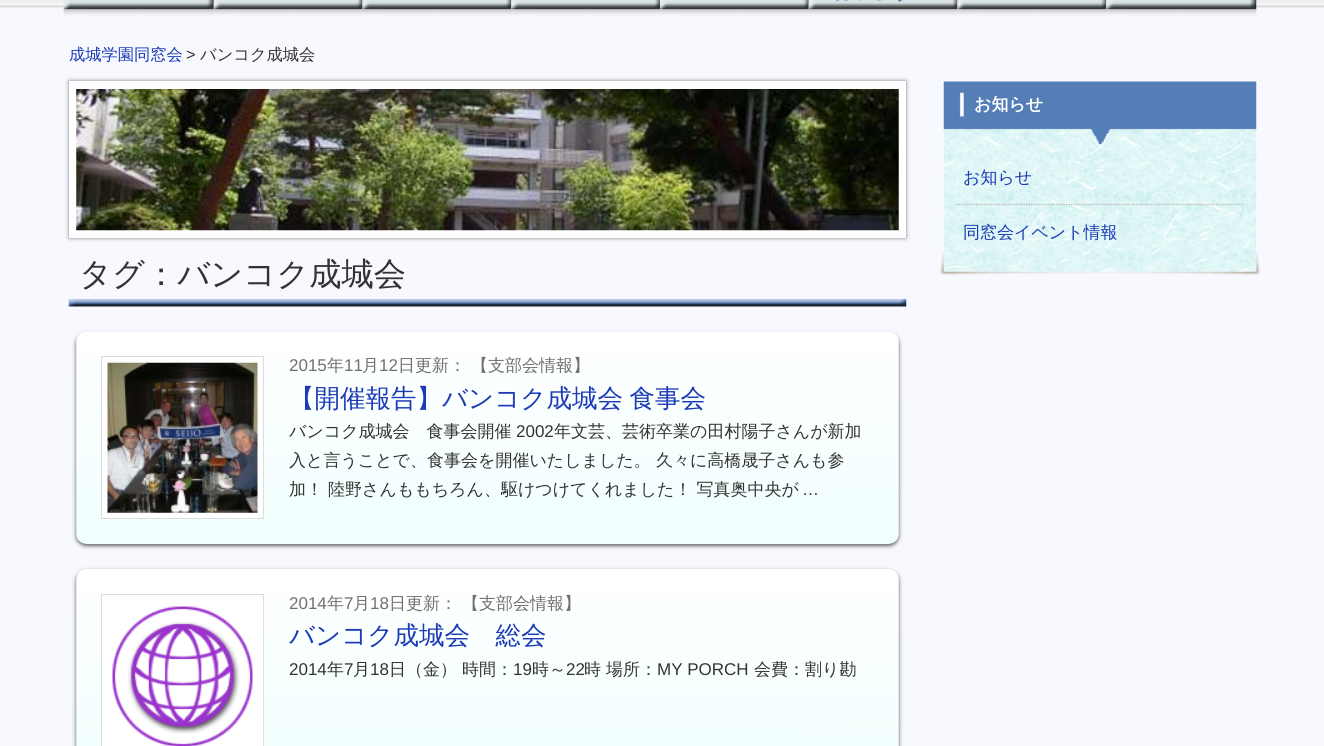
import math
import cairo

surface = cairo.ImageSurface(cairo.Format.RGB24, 1324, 746)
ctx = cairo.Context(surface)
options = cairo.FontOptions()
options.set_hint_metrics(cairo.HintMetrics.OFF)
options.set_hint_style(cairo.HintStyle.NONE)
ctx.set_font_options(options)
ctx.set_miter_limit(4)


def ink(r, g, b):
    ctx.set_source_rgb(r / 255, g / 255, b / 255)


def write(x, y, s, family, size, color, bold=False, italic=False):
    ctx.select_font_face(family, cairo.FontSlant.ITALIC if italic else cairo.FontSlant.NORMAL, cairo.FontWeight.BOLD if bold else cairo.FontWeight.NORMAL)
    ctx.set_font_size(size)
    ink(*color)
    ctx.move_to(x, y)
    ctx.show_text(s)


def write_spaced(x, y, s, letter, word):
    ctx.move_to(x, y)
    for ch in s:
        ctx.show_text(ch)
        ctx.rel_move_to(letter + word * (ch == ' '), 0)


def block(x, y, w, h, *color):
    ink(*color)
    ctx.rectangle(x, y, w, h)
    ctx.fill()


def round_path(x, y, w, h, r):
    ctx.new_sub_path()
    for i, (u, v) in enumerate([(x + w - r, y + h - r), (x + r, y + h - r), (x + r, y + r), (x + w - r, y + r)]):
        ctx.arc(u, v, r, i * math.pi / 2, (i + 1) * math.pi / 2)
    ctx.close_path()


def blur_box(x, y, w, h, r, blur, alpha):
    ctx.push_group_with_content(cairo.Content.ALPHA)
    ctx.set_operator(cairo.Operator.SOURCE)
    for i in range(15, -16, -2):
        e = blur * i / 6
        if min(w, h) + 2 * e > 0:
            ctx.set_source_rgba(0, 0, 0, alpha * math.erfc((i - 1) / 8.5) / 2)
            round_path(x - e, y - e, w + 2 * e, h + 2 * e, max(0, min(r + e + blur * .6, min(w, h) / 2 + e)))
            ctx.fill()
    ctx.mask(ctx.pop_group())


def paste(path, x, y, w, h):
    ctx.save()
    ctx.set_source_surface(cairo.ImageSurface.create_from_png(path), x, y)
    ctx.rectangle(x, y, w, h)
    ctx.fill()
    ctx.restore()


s1 = dict(family="WenQuanYi Zen Hei Medium", size=16.25, color=(26, 58, 182))
s2 = dict(family="Liberation Sans", size=16.25, color=(51, 51, 51))
s3 = dict(family="WenQuanYi Zen Hei Medium", size=16.25, color=(51, 51, 51))
s4 = dict(family="WenQuanYi Zen Hei", size=17, color=(255, 255, 255), bold=True)
s5 = dict(family="WenQuanYi Zen Hei Medium", size=17, color=(26, 58, 182))
s6 = dict(family="WenQuanYi Zen Hei Medium", size=32.25, color=(51, 51, 51))
s7 = dict(family="Liberation Sans", size=17, color=(112, 112, 112))
s8 = dict(family="WenQuanYi Zen Hei Medium", size=17, color=(112, 112, 112))
s9 = dict(family="WenQuanYi Zen Hei Medium", size=17, color=(51, 51, 51))
s10 = dict(family="Liberation Sans", size=17, color=(51, 51, 51))
s11 = dict(family="WenQuanYi Zen Hei Medium", size=25.5, color=(26, 58, 182))

ink(248, 248, 255)
ctx.paint()
paste("pic1.png", 0, 0, 1324, 8)
paste("pic2.png", 63, 0, 151, 16)
paste("pic3.png", 213, 0, 150, 16)
paste("pic4.png", 362, 0, 150, 16)
paste("pic5.png", 511, 0, 149, 16)
paste("pic6.png", 660, 0, 149, 16)
paste("pic7.png", 808, 0, 150, 16)
paste("pic8.png", 957, 0, 150, 16)
paste("pic9.png", 1106, 0, 151, 16)
write(69, 60, "成城学園同窓会", **s1)
write(186, 60, ">", **s2)
write(200, 60, "バンコク成城会", **s3)
paste("pic10.png", 940, 253, 320, 22)
paste("pic12.png", 943, 129, 314, 143)
paste("pic11.png", 943, 81, 314, 63)
write(974, 110, "お知らせ", **s4)
write(963, 183, "お知らせ", **s5)
ctx.new_path()
ctx.move_to(956, 204.5)
ctx.line_to(1244, 204.5)
ink(185, 180, 171)
ctx.set_line_width(1.2)
ctx.set_dash([1.25, 1.25])
ctx.stroke()
write(963, 238, "同窓会イベント情報", **s5)
ink(0, 0, 0)
blur_box(69, 81, 837, 157, 0, 2, 0.5)
block(69, 81, 837, 157, 255, 255, 255)
paste("pic13.png", 76, 89, 823, 142)
paste("pic14.png", 68, 298, 839, 9)
write(79, 285, "タグ：バンコク成城会", **s6)
ink(102, 102, 102)
blur_box(76, 334, 823, 212, 10, 2, 1)
paste("pic15.png", 76, 331, 823, 213)
block(102, 364, 161, 154, 255, 255, 255)
ctx.rectangle(101.5, 356.5, 162, 162)
ink(221, 221, 221)
ctx.set_line_width(1)
ctx.set_dash([])
ctx.stroke()
paste("pic16.png", 107, 362, 151, 151)
write(289, 371, "2015", **s7)
write(327, 371, "年", **s8)
write(344, 371, "11", **s7)
write(362, 371, "月", **s8)
write(379, 371, "12", **s7)
write(398, 371, "日更新：", **s8)
write(471, 371, "【支部会情報】", **s8)
ctx.set_font_size(25.5)
ink(26, 58, 182)
write_spaced(289, 407, "【開催報告】バンコク成城会 食事会", 0, -1)
write(289, 437, "バンコク成城会　食事会開催", **s9)
write(516, 437, "2002", **s10)
write(554, 437, "年文芸、芸術卒業の田村陽子さんが新加", **s9)
write(289, 466, "入と言うことで、食事会を開催いたしました。 久々に高橋晟子さんも参", **s9)
write(289, 495, "加！ 陸野さんももちろん、駆けつけてくれました！ 写真奥中央が", **s9)
write(802, 495, "…", **s10)
ink(102, 102, 102)
blur_box(76, 571, 823, 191, 10, 2, 1)
paste("pic17.png", 76, 569, 823, 177)
block(102, 599, 161, 147, 255, 255, 255)
ctx.rectangle(101.5, 594.5, 162, 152)
ink(221, 221, 221)
ctx.stroke()
paste("pic18.png", 112, 606, 141, 140)
write(289, 609, "2014", **s7)
write(327, 609, "年", **s8)
write(344, 609, "7", **s7)
write(353, 609, "月", **s8)
write(370, 609, "18", **s7)
write(389, 609, "日更新：", **s8)
write(462, 609, "【支部会情報】", **s8)
write(289, 644, "バンコク成城会　総会", **s11)
write(289, 675, "2014", **s10)
write(327, 675, "年", **s9)
write(344, 675, "7", **s10)
write(353, 675, "月", **s9)
write(370, 675, "18", **s10)
write(389, 675, "日（金）", **s9)
write(462, 675, "時間：", **s9)
write(513, 675, "19", **s10)
write(532, 675, "時～", **s9)
write(566, 675, "22", **s10)
write(584, 675, "時", **s9)
write(606, 675, "場所：", **s9)
write(657, 675, "MY PORCH", **s10)
write(754, 675, "会費：割り勘", **s9)
surface.write_to_png("screenshot.png")
